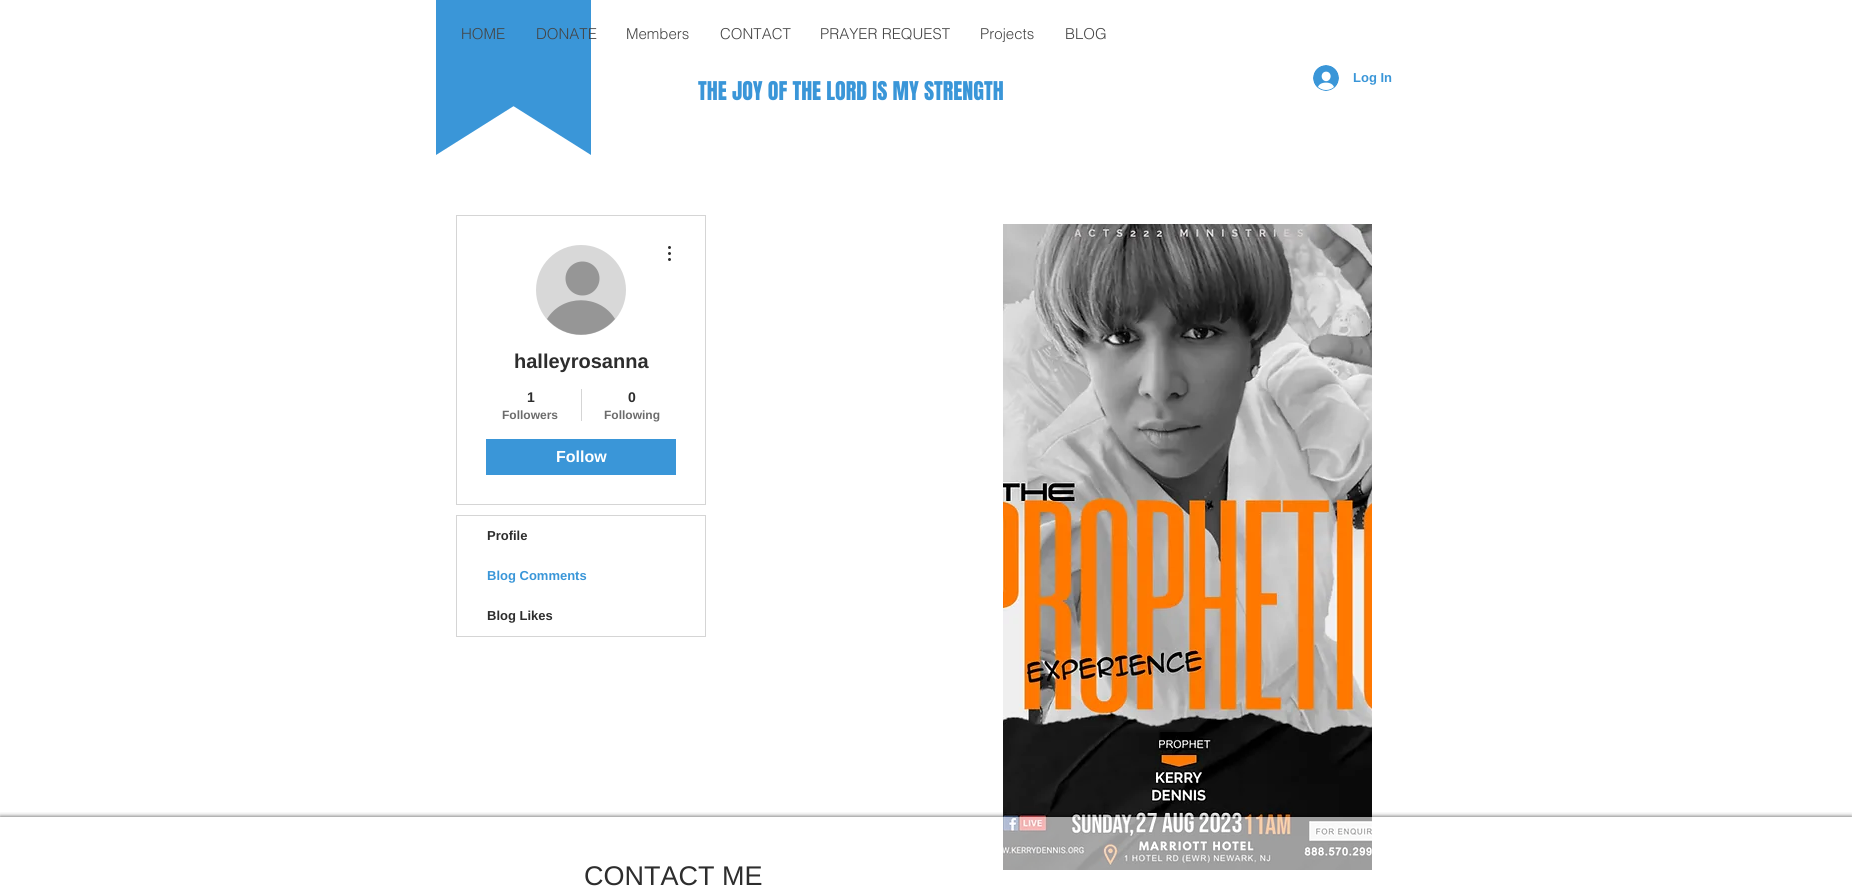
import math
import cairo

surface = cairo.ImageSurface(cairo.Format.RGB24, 1852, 890)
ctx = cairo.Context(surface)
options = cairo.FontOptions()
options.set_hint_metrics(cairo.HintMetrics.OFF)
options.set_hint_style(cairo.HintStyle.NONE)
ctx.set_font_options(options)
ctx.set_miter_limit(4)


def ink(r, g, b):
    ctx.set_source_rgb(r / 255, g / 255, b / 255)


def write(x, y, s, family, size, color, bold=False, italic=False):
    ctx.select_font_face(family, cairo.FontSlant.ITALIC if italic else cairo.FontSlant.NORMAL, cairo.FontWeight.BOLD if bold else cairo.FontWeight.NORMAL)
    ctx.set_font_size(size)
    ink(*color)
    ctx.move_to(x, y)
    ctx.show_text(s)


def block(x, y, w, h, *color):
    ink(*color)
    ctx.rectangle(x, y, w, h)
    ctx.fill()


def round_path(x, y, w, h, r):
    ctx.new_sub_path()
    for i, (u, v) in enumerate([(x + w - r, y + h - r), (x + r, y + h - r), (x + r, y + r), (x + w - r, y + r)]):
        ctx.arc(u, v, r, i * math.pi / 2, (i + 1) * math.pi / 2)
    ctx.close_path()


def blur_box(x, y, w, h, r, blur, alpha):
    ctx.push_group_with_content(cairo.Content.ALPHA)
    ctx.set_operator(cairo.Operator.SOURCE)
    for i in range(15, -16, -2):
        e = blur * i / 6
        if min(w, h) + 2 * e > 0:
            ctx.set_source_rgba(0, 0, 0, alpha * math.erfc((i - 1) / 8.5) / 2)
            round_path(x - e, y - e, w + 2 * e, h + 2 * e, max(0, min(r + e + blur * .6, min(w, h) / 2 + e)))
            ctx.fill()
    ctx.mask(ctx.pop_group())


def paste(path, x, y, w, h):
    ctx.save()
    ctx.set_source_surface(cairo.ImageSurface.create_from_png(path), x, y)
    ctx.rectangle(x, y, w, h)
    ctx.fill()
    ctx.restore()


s1 = dict(family="helvetica Light", size=15, color=(68, 68, 68))
s2 = dict(family="Anton", size=22, color=(58, 150, 216))
s3 = dict(family="Liberation Sans", size=13, color=(58, 150, 216), bold=True)
s4 = dict(family="Liberation Sans", size=20, color=(45, 45, 45), bold=True)
s5 = dict(family="Liberation Sans", size=14, color=(45, 45, 45), bold=True)
s6 = dict(family="Liberation Sans", size=12, color=(108, 108, 108), bold=True)
s7 = dict(family="Liberation Sans", size=16, color=(255, 255, 255), bold=True)
s8 = dict(family="Liberation Sans", size=13, color=(45, 45, 45), bold=True)
s9 = dict(family="Liberation Sans", size=27, color=(45, 45, 45))

ink(255, 255, 255)
ctx.paint()
block(436, 0, 155, 77, 58, 150, 216)
ctx.save()
ctx.rectangle(436, 77, 155, 78)
ctx.clip()
ctx.new_path()
ctx.move_to(436, 155)
ctx.line_to(436, -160)
ctx.line_to(936, -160)
ctx.close_path()
ctx.fill()
ctx.new_path()
ctx.move_to(591, -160)
ctx.line_to(591, 155)
ctx.line_to(91, -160)
ctx.close_path()
ctx.fill()
ctx.restore()
write(461, 39, "HOME", **s1)
write(536, 39, "DONATE", **s1)
write(626, 39, "Members", **s1)
write(720, 39, "CONTACT", **s1)
write(820, 39, "PRAYER REQUEST", **s1)
write(980, 39, "Projects", **s1)
write(1065, 39, "BLOG", **s1)
write(698, 100, "THE JOY OF THE LORD IS MY STRENGTH", **s2)
paste("pic1.png", 1313, 65, 26, 26)
write(1353, 82, "Log In", **s3)
paste("pic2.png", 1003, 224, 369, 646)
ctx.rectangle(456.5, 215.5, 249, 289)
ink(213, 213, 213)
ctx.set_line_width(1)
ctx.stroke()
ink(216, 216, 216)
ctx.arc(581, 290, 45, 0, 2 * math.pi)
ctx.fill()
ink(150, 150, 150)
ctx.arc(582.5, 278.5, 17, 0, 2 * math.pi)
ctx.fill()
ctx.new_path()
ctx.move_to(615, 319)
ctx.curve_to(597, 340, 565, 340, 547, 319)
ctx.curve_to(562, 294, 600, 294, 615, 319)
ctx.close_path()
ctx.fill()
paste("pic3.png", 668, 246, 3, 15)
write(514, 368, "halleyrosanna", **s4)
write(527, 402, "1", **s5)
write(502, 419, "Followers", **s6)
block(581, 389, 1, 32, 213, 213, 213)
write(628, 402, "0", **s5)
write(604, 419, "Following", **s6)
block(486, 439, 190, 36, 58, 150, 216)
write(556, 462, "Follow", **s7)
ctx.rectangle(456.5, 515.5, 249, 121)
ink(213, 213, 213)
ctx.stroke()
write(487, 540, "Profile", **s8)
write(487, 580, "Blog Comments", **s3)
write(487, 620, "Blog Likes", **s8)
ctx.save()
ctx.rectangle(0, 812, 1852, 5)
ctx.clip()
ink(0, 0, 0)
blur_box(0, 817, 1852, 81, 0, 2.5, 0.7)
ctx.restore()
ctx.set_source_rgba(1, 1, 1, 0.6)
ctx.rectangle(1003, 817, 369, 53)
ctx.fill()
write(584, 885, "CONTACT ME", **s9)
surface.write_to_png("screenshot.png")
